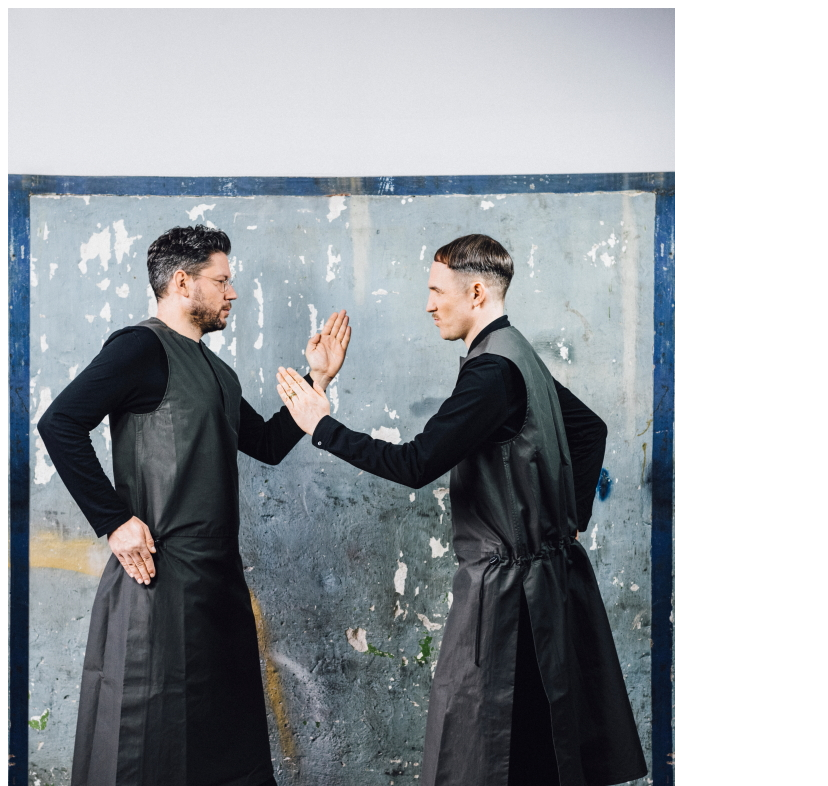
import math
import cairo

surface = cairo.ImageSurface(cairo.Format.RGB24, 828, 786)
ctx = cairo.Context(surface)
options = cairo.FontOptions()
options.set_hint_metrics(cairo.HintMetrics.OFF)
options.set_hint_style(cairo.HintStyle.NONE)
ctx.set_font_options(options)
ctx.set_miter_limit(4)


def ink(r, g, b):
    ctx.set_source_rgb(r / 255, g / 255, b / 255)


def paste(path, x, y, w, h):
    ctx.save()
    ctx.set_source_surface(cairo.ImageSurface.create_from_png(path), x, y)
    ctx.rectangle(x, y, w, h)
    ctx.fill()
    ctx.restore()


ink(255, 255, 255)
ctx.paint()
paste("pic1.png", 8, 8, 667, 778)
surface.write_to_png("screenshot.png")
